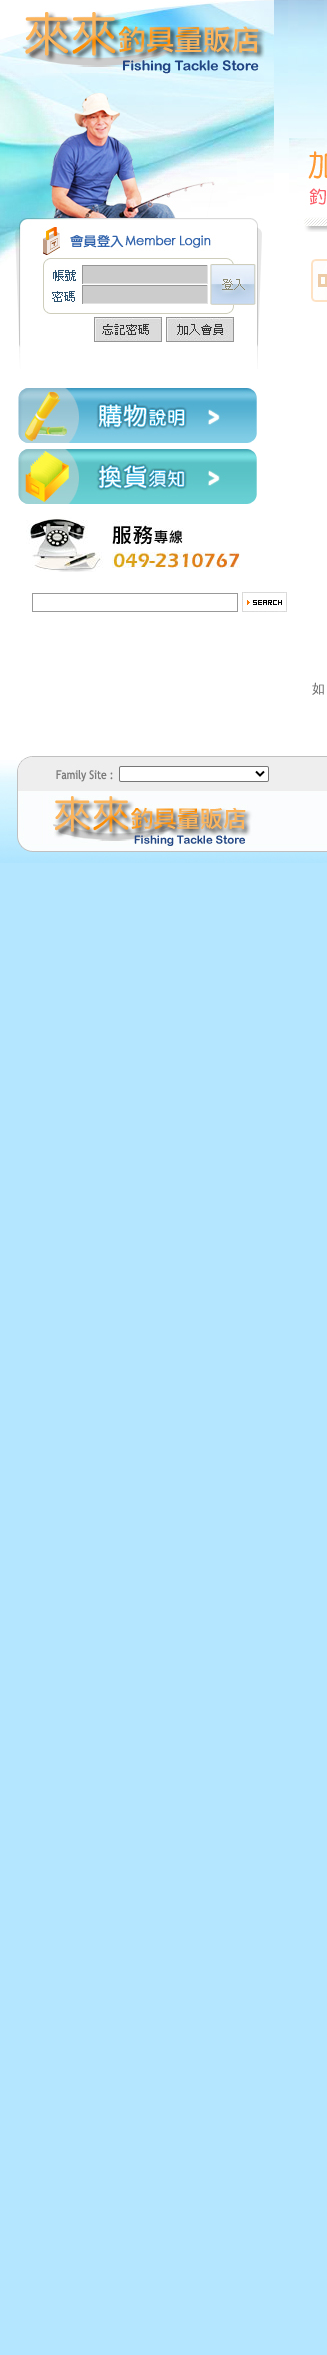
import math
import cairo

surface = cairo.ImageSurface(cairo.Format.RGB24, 327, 2355)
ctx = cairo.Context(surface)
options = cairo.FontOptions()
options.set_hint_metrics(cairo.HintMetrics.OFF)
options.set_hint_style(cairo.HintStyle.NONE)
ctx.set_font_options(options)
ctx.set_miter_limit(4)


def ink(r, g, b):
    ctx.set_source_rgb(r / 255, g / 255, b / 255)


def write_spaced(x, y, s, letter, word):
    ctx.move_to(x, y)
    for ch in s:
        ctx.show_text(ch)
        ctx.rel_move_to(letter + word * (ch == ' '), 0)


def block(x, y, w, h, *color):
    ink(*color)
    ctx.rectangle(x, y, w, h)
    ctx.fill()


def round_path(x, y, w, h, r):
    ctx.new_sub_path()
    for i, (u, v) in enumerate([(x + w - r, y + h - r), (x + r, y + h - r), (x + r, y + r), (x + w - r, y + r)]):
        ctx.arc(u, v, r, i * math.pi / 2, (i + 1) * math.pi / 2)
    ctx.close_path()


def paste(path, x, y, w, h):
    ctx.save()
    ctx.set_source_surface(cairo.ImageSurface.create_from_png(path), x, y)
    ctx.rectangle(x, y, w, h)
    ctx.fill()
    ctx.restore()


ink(180, 230, 255)
ctx.paint()
block(0, 173, 327, 583, 255, 255, 255)
paste("pic1.png", 274, 0, 53, 173)
paste("pic2.png", 0, 0, 274, 218)
paste("pic3.png", 0, 218, 262, 151)
block(83, 266, 124, 17, 204, 204, 204)
block(82, 265, 126, 1, 150, 150, 150)
block(207, 265, 1, 19, 225, 225, 225)
block(82, 283, 126, 1, 225, 225, 225)
block(82, 265, 1, 19, 150, 150, 150)
paste("pic4.png", 210, 264, 46, 41)
block(83, 286, 124, 17, 204, 204, 204)
block(82, 285, 126, 1, 150, 150, 150)
block(207, 285, 1, 19, 225, 225, 225)
block(82, 303, 126, 1, 225, 225, 225)
block(82, 285, 1, 19, 150, 150, 150)
paste("pic5.png", 94, 317, 68, 25)
paste("pic6.png", 166, 317, 68, 25)
paste("pic7.png", 18, 388, 239, 55)
paste("pic8.png", 18, 449, 239, 55)
paste("pic9.png", 26, 517, 214, 55)
ctx.rectangle(32.5, 593.5, 205, 18)
ink(153, 153, 153)
ctx.set_line_width(1)
ctx.stroke()
paste("pic10.png", 242, 592, 45, 20)
paste("pic11.png", 289, 138, 38, 94)
paste("pic12.png", 311, 259, 16, 43)
ctx.select_font_face("WenQuanYi Zen Hei Medium")
ctx.set_font_size(13)
ink(102, 102, 102)
write_spaced(312, 693, "如", 1, 0)
paste("pic13.png", 0, 756, 327, 107)
ink(255, 255, 255)
round_path(119.5, 766.5, 149, 15, 1.5)
ctx.fill_preserve()
ink(118, 118, 118)
ctx.stroke()
ctx.new_path()
ctx.move_to(256, 771.5)
ctx.line_to(260, 775.5)
ctx.line_to(264, 771.5)
ink(0, 0, 0)
ctx.set_line_width(2)
ctx.stroke()
surface.write_to_png("screenshot.png")
